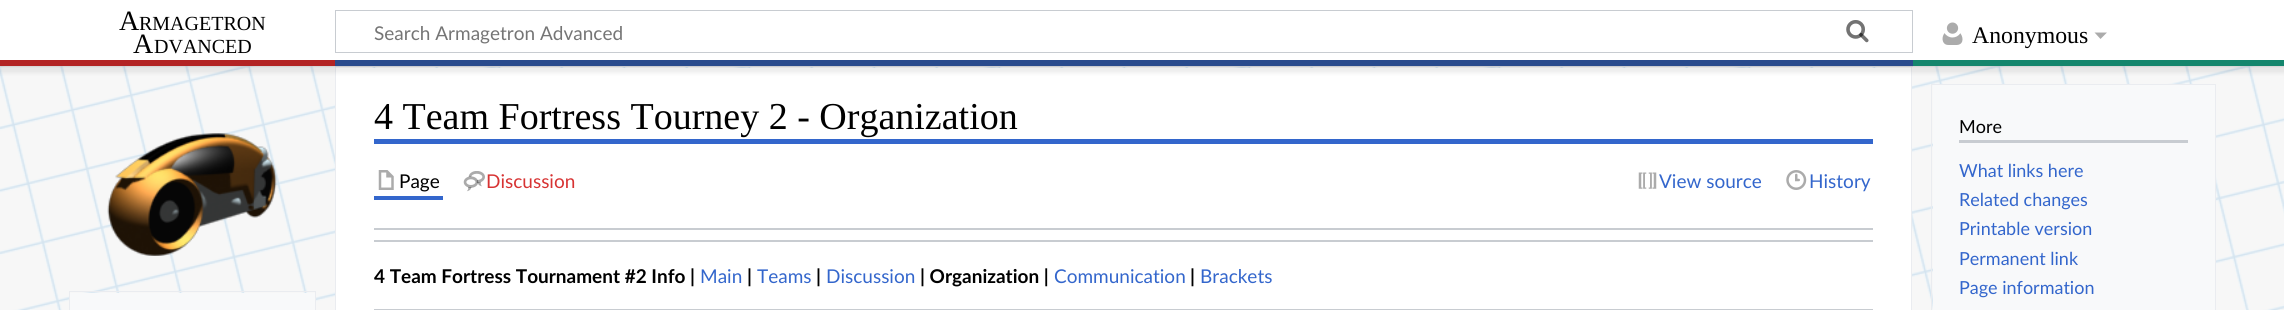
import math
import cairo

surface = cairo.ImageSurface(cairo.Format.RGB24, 2284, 310)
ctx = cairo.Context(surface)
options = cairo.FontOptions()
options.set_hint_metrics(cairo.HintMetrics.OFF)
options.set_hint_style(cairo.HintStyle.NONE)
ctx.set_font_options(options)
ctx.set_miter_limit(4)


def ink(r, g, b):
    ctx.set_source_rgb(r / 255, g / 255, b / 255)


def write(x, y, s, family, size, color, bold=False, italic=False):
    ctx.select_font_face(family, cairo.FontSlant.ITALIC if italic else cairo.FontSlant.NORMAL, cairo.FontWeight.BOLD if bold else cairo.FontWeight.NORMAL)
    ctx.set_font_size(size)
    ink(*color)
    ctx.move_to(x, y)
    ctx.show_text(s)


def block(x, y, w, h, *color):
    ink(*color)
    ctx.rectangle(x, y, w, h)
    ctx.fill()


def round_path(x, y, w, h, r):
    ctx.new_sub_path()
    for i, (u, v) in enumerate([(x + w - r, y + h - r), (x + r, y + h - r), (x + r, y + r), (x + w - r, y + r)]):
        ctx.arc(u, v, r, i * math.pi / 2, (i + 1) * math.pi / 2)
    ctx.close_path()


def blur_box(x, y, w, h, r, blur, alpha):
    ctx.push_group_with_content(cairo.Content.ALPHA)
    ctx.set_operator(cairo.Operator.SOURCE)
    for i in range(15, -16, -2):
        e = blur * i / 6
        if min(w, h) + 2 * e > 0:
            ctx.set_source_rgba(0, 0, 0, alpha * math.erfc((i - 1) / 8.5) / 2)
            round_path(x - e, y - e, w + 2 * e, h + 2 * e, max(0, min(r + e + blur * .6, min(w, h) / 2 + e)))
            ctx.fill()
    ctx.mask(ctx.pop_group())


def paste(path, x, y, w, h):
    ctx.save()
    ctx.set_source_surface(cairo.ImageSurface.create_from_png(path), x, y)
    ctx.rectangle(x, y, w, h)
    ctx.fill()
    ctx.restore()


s1 = dict(family="Liberation Serif", size=28, color=(0, 0, 0))
s2 = dict(family="Liberation Serif", size=20, color=(0, 0, 0))
s3 = dict(family="Lato", size=19, color=(117, 117, 117))
s4 = dict(family="Liberation Serif", size=23.75, color=(0, 0, 0))
s5 = dict(family="Liberation Serif", size=38, color=(0, 0, 0))
s6 = dict(family="Lato", size=19, color=(0, 0, 0))
s7 = dict(family="Lato", size=19, color=(215, 51, 51))
s8 = dict(family="Lato", size=19, color=(51, 102, 204))
s9 = dict(family="Lato", size=19, color=(0, 0, 0), bold=True)
s10 = dict(family="Lato", size=18, color=(0, 0, 0))
s11 = dict(family="Lato", size=18, color=(51, 102, 204))

ink(255, 255, 255)
ctx.paint()
paste("pic4.png", 0, 66, 2284, 244)
block(336, 68, 1575, 242, 255, 255, 255)
block(335, 66, 1578, 1, 234, 236, 240)
block(1911, 66, 1, 244, 234, 236, 240)
block(335, 66, 1, 244, 234, 236, 240)
ink(0, 0, 0)
blur_box(0, 60, 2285, 6, 0, 1, 0.2)
blur_box(-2, 61, 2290, 12, 0, 2, 0.07)
block(0, 58, 2284, 2, 255, 255, 255)
write(119, 30, "A", **s1)
write(139, 30, "RMAGETRON", **s2)
write(133, 53, "A", **s1)
write(154, 53, "DVANCED", **s2)
ctx.rectangle(335.5, 10.5, 1577, 42)
ink(200, 204, 209)
ctx.set_line_width(1)
ctx.stroke()
paste("pic1.png", 1846, 20, 23, 23)
write(374, 40, "Search Armagetron Advanced", **s3)
paste("pic2.png", 1846, 20, 23, 23)
paste("pic3.png", 1942, 22, 21, 23)
write(1972, 43, "Anonymous", **s4)
ink(171, 171, 171)
ctx.new_path()
ctx.move_to(2107, 32.5)
ctx.line_to(2100.5, 39)
ctx.line_to(2094.5, 32.5)
ctx.close_path()
ctx.fill()
block(0, 60, 335, 6, 179, 36, 36)
block(335, 60, 1578, 6, 42, 75, 141)
block(1913, 60, 371, 6, 20, 134, 109)
paste("pic5.png", 107, 133, 170, 123)
block(70, 293, 245, 17, 248, 249, 250)
block(69, 291, 247, 1, 234, 236, 240)
block(315, 291, 1, 19, 234, 236, 240)
block(69, 291, 1, 19, 234, 236, 240)
block(374, 139, 1499, 5, 51, 102, 204)
write(374, 129, "4 Team Fortress Tourney 2 - Organization", **s5)
block(374, 196, 69, 4, 51, 102, 204)
paste("pic6.png", 378, 170, 16, 20)
write(399, 188, "Page", **s6)
paste("pic7.png", 463, 171, 22, 21)
write(486, 188, "Discussion", **s7)
paste("pic8.png", 1638, 172, 19, 17)
write(1659, 188, "View source", **s8)
paste("pic9.png", 1786, 170, 21, 20)
write(1809, 188, "History", **s8)
block(374, 228, 1499, 2, 200, 204, 209)
block(374, 240, 1499, 2, 200, 204, 209)
write(374, 283, "4 Team Fortress Tournament #2 Info |", **s9)
write(700, 283, "Main", **s8)
write(747, 283, "|", **s9)
write(757, 283, "Teams", **s8)
write(816, 283, "|", **s9)
write(826, 283, "Discussion", **s8)
write(920, 283, "| Organization |", **s9)
write(1054, 283, "Communication", **s8)
write(1190, 283, "|", **s9)
write(1200, 283, "Brackets", **s8)
block(374, 309, 1499, 1, 200, 204, 209)
block(1933, 85, 282, 225, 248, 249, 250)
block(1931, 84, 285, 1, 234, 236, 240)
block(2215, 84, 1, 226, 234, 236, 240)
block(1931, 84, 1, 226, 234, 236, 240)
block(1959, 140, 229, 3, 200, 204, 209)
write(1959, 133, "More", **s10)
write(1959, 177, "What links here", **s11)
write(1959, 206, "Related changes", **s11)
write(1959, 235, "Printable version", **s11)
write(1959, 265, "Permanent link", **s11)
write(1959, 294, "Page information", **s11)
surface.write_to_png("screenshot.png")
